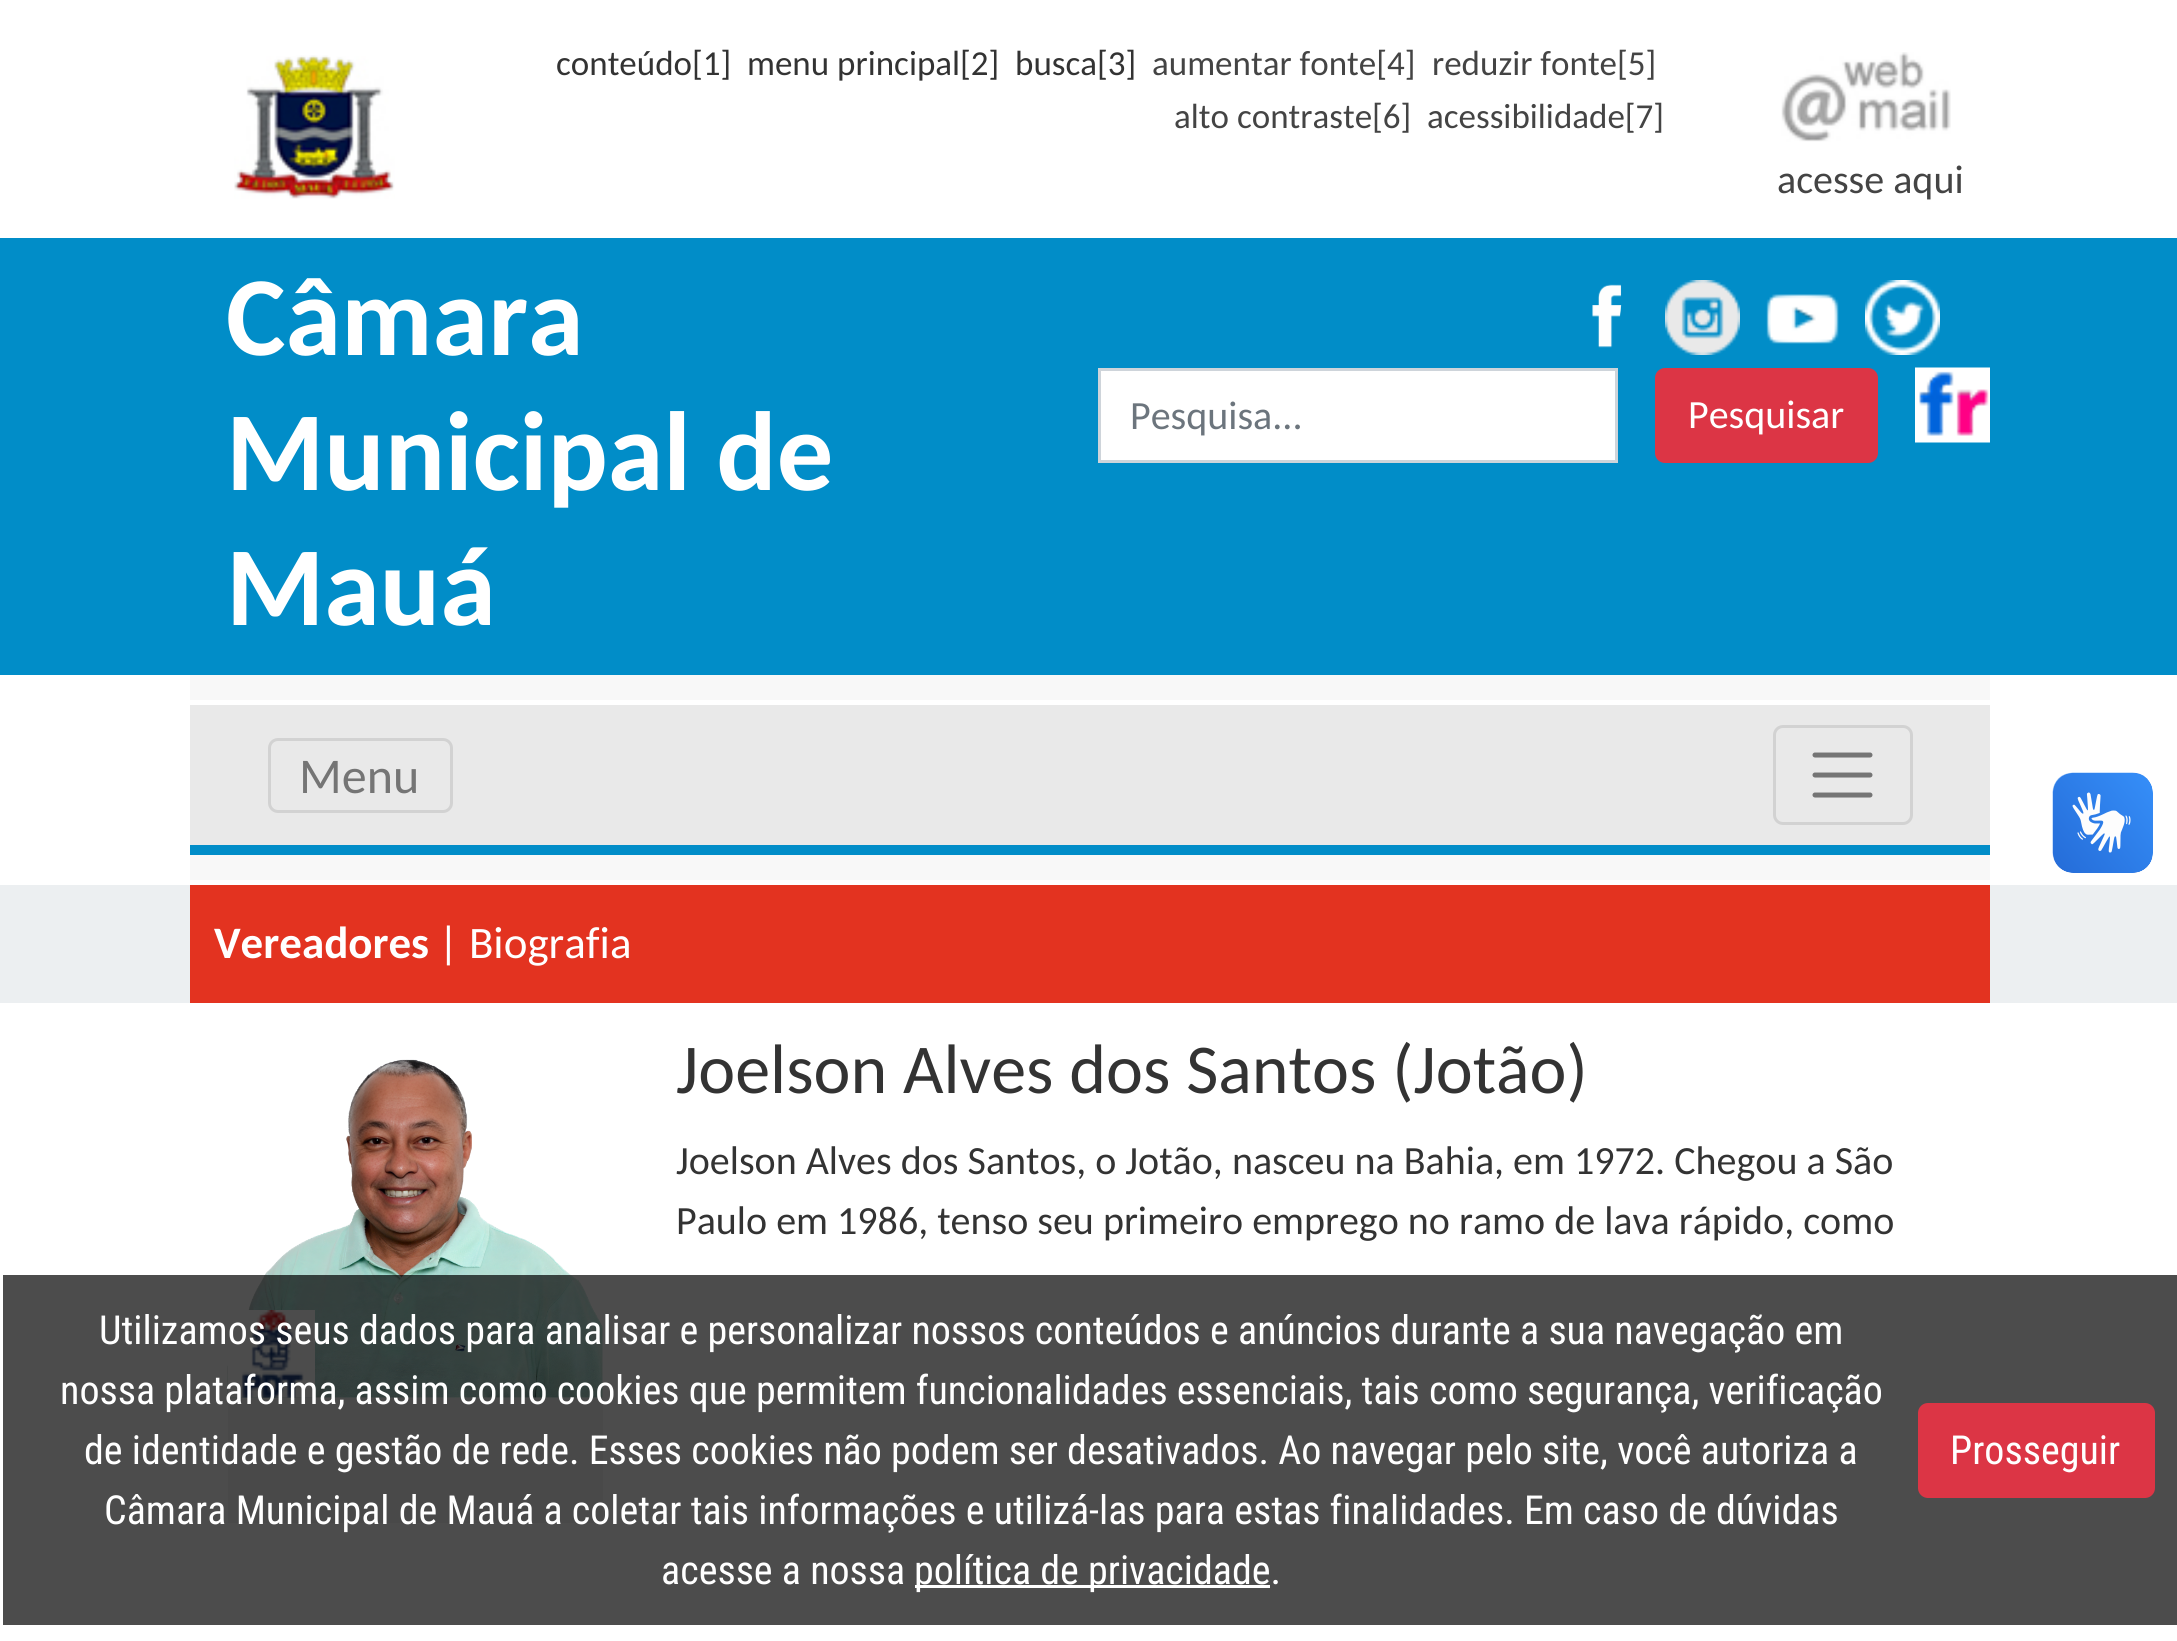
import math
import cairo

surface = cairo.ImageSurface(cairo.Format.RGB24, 2177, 1641)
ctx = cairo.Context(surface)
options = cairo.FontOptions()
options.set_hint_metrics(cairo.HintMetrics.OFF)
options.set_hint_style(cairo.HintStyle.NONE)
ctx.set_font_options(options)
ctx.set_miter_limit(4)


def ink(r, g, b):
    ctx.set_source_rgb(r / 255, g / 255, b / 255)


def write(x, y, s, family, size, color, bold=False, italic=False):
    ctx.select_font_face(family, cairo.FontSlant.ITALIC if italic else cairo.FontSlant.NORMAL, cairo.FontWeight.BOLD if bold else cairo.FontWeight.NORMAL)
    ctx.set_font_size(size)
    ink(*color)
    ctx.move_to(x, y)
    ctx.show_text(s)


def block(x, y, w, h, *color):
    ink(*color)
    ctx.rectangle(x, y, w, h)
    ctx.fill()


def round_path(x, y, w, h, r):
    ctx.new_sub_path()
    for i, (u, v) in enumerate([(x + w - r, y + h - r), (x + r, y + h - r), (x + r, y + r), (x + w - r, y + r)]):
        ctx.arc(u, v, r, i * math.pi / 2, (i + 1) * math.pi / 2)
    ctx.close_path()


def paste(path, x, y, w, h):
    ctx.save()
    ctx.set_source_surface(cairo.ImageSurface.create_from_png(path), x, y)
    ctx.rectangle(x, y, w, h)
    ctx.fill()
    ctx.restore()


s1 = dict(family="Carlito", size=35, color=(51, 51, 51))
s2 = dict(family="Carlito", size=35, color=(68, 68, 68))
s3 = dict(family="Carlito", size=40, color=(68, 68, 68))
s4 = dict(family="Carlito", size=112.5, color=(255, 255, 255), bold=True)
s5 = dict(family="Carlito", size=40, color=(108, 117, 125))
s6 = dict(family="Carlito", size=40, color=(255, 255, 255))
s7 = dict(family="Carlito", size=50, color=(117, 117, 117))
s8 = dict(family="Carlito", size=45, color=(255, 255, 255), bold=True)
s9 = dict(family="Carlito", size=45, color=(255, 255, 255))
s10 = dict(family="Carlito", size=70, color=(51, 51, 51))
s11 = dict(family="Carlito", size=40, color=(51, 51, 51))
s12 = dict(family="Roboto Condensed", size=40, color=(255, 255, 255))

ink(255, 255, 255)
ctx.paint()
paste("pic1.png", 234, 55, 161, 144)
write(556, 75, "conteúdo[1]", **s1)
write(747, 75, "menu principal[2]", **s1)
write(1015, 75, "busca[3]", **s1)
write(1152, 75, "aumentar fonte[4]", **s2)
write(1432, 75, "reduzir fonte[5]", **s2)
write(1174, 128, "alto contraste[6]", **s2)
write(1427, 128, "acessibilidade[7]", **s2)
paste("pic2.png", 1781, 52, 170, 90)
write(1777, 193, "acesse aqui", **s3)
block(0, 238, 2177, 437, 1, 141, 200)
write(226, 355, "Câmara", **s4)
write(226, 490, "Municipal de", **s4)
write(226, 625, "Mauá", **s4)
paste("pic3.png", 1592, 284, 30, 64)
paste("pic4.png", 1665, 280, 75, 75)
paste("pic5.png", 1766, 294, 73, 50)
paste("pic6.png", 1865, 280, 75, 75)
ctx.rectangle(1099.5, 369.5, 517, 92)
ctx.fill_preserve()
ink(206, 212, 218)
ctx.set_line_width(3)
ctx.stroke()
write(1130, 429, "Pesquisa...", **s5)
ink(220, 53, 69)
round_path(1656.5, 369.5, 220, 92, 8.5)
ctx.fill_preserve()
ctx.stroke()
write(1688, 428, "Pesquisar", **s6)
paste("pic7.png", 1915, 367, 75, 76)
block(190, 675, 1800, 25, 248, 248, 248)
block(190, 705, 1800, 140, 233, 233, 233)
block(190, 845, 1800, 10, 1, 141, 200)
round_path(269.5, 739.5, 182, 72, 8.5)
ink(210, 210, 210)
ctx.stroke()
write(299, 793, "Menu", **s7)
round_path(1774.5, 726.5, 137, 97, 8.5)
ink(210, 210, 210)
ctx.stroke()
ctx.new_path()
ctx.move_to(1815, 755)
ctx.line_to(1870, 755)
ctx.move_to(1815, 775)
ctx.line_to(1870, 775)
ctx.move_to(1815, 795)
ctx.line_to(1870, 795)
ink(117, 117, 117)
ctx.set_line_width(5)
ctx.set_line_cap(cairo.LineCap.ROUND)
ctx.stroke()
paste("pic8.png", 2052, 772, 101, 101)
paste("pic9.png", 2053, 773, 100, 100)
block(190, 855, 1800, 25, 248, 248, 248)
block(0, 885, 2177, 118, 236, 239, 241)
block(190, 885, 1800, 118, 227, 51, 32)
write(214, 958, "Vereadores", **s8)
write(438, 958, "| Biografia", **s9)
paste("pic10.png", 227, 1059, 376, 339)
paste("pic11.png", 227, 1310, 88, 88)
block(228, 1398, 375, 125, 245, 245, 245)
write(676, 1093, "Joelson Alves dos Santos (Jotão)", **s10)
write(676, 1174, "Joelson Alves dos Santos, o Jotão, nasceu na Bahia, em 1972. Chegou a São", **s11)
write(676, 1234, "Paulo em 1986, tenso seu primeiro emprego no ramo de lava rápido, como", **s11)
ctx.set_source_rgba(0, 0, 0, 0.7)
ctx.rectangle(3, 1275, 2174, 350)
ctx.fill()
write(99, 1344, "Utilizamos seus dados para analisar e personalizar nossos conteúdos e anúncios durante a sua navegação em", **s12)
write(60, 1404, "nossa plataforma, assim como cookies que permitem funcionalidades essenciais, tais como segurança, verificação", **s12)
write(84, 1464, "de identidade e gestão de rede. Esses cookies não podem ser desativados. Ao navegar pelo site, você autoriza a", **s12)
write(104, 1524, "Câmara Municipal de Mauá a coletar tais informações e utilizá-las para estas finalidades. Em caso de dúvidas", **s12)
write(661, 1584, "acesse a nossa", **s12)
block(915, 1585, 355, 3, 255, 255, 255)
write(914, 1584, "política de privacidade.", **s12)
ink(220, 53, 69)
round_path(1919.5, 1404.5, 234, 92, 8.5)
ctx.fill_preserve()
ctx.set_line_width(3)
ctx.set_line_cap(cairo.LineCap.BUTT)
ctx.stroke()
write(1950, 1464, "Prosseguir", **s12)
surface.write_to_png("screenshot.png")
